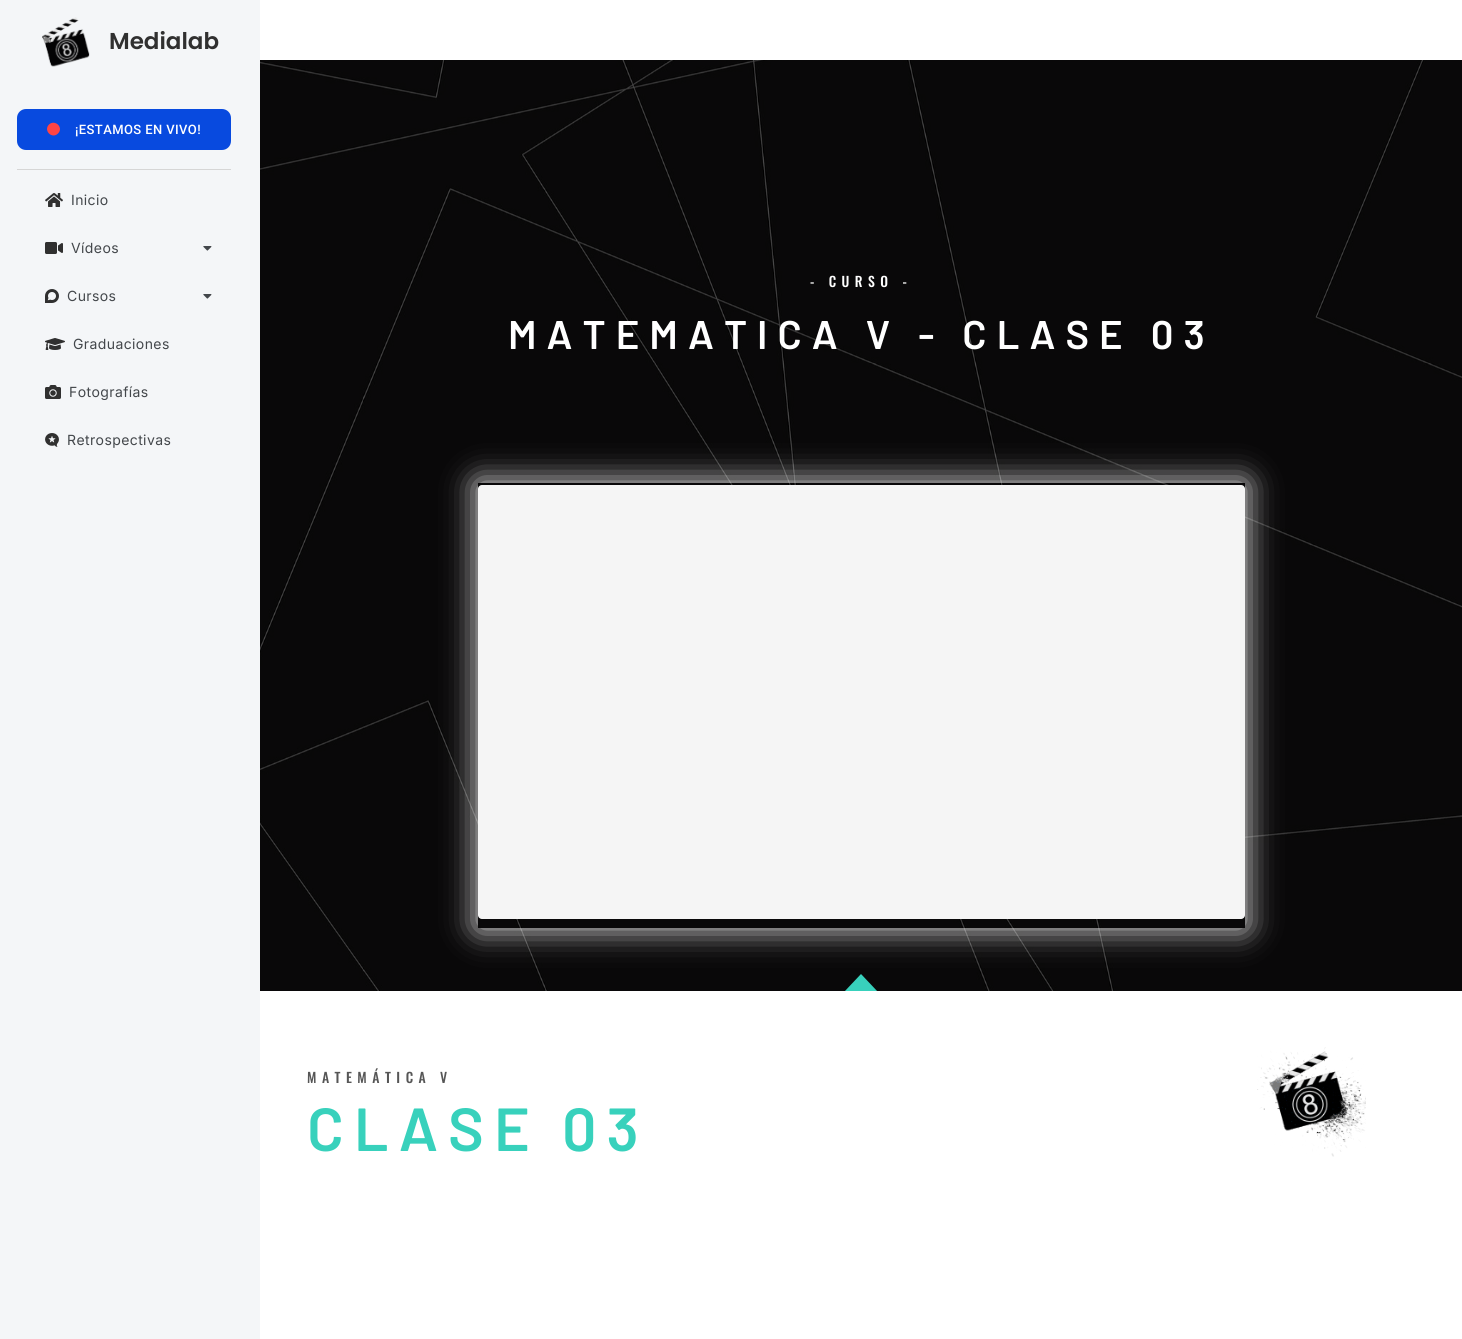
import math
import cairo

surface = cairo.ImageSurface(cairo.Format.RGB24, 1462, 1339)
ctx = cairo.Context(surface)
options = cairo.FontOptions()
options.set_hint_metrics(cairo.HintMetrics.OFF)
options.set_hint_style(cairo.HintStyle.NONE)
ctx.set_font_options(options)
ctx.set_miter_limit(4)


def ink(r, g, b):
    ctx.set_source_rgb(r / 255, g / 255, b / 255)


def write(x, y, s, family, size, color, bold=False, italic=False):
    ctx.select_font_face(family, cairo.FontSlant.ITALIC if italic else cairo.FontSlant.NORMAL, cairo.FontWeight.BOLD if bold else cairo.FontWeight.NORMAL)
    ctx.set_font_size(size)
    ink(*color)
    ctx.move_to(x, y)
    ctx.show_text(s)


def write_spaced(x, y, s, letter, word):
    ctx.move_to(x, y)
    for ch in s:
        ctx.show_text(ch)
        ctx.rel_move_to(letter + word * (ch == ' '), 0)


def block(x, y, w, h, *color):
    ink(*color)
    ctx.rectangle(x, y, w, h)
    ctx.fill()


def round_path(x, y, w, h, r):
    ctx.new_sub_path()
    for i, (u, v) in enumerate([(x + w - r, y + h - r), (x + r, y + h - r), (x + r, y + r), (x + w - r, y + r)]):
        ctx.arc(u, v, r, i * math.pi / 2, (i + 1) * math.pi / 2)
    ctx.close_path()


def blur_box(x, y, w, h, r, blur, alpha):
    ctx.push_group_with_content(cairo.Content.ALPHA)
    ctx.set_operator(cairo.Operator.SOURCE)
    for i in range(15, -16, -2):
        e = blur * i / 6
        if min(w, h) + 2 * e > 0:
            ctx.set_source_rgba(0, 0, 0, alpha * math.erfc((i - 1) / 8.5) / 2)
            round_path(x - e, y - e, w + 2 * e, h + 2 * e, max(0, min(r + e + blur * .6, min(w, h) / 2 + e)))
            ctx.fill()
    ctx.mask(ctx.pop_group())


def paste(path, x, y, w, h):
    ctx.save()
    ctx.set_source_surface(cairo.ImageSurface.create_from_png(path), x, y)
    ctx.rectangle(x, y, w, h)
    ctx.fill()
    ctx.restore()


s1 = dict(family="Poppins SemiBold", size=23, color=(48, 48, 48))

ink(255, 255, 255)
ctx.paint()
block(0, 0, 260, 1339, 244, 246, 248)
paste("pic1.png", 42, 17, 48, 50)
write(109, 49, "Medialab", **s1)
ink(8, 74, 223)
round_path(17, 109, 214, 41, 9)
ctx.fill()
ink(255, 68, 68)
ctx.new_path()
ctx.move_to(49, 124.5)
ctx.curve_to(55, 119, 64, 127.5, 58, 133.5)
ctx.curve_to(52, 139.5, 43, 130.5, 49, 124.5)
ctx.close_path()
ctx.fill()
ctx.select_font_face("Roboto Medium")
ctx.set_font_size(13)
ink(255, 255, 255)
write_spaced(75, 134, "¡ESTAMOS EN VIVO!", 0.4, 0)
block(17, 169, 214, 1, 214, 214, 214)
paste("pic2.png", 45, 193, 18, 14)
ctx.select_font_face("Inter")
ctx.set_font_size(14)
ink(67, 71, 75)
write_spaced(71, 205, "Inicio", 0.4, 0)
paste("pic3.png", 45, 242, 18, 12)
write_spaced(71, 253, "Vídeos", 0.4, 0)
paste("pic4.png", 203, 246, 9, 5)
paste("pic5.png", 45, 289, 14, 14)
write_spaced(67, 301, "Cursos", 0.4, 0)
paste("pic4.png", 203, 294, 9, 5)
paste("pic6.png", 45, 338, 20, 12)
write_spaced(73, 349, "Graduaciones", 0.4, 0)
paste("pic7.png", 45, 385, 16, 14)
write_spaced(69, 397, "Fotografías", 0.4, 0)
paste("pic8.png", 45, 433, 14, 14)
write_spaced(67, 445, "Retrospectivas", 0.4, 0)
paste("pic9.png", 260, 60, 1202, 480)
ctx.select_font_face("Oswald Medium")
ctx.set_font_size(13.75)
ink(255, 255, 255)
write_spaced(810, 287, "- CURSO -", 5.5, 0)
ctx.select_font_face("Barlow SemiBold")
ctx.set_font_size(40)
write_spaced(508, 349, "MATEMATICA V - CLASE 03", 10, 0)
paste("pic10.png", 260, 540, 1202, 451)
ink(56, 209, 188)
ctx.new_path()
ctx.move_to(861, 974)
ctx.line_to(878, 992)
ctx.line_to(844, 992)
ctx.close_path()
ctx.fill()
ctx.save()
ctx.set_fill_rule(cairo.FillRule.EVEN_ODD)
ctx.new_path()
ctx.move_to(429, 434)
ctx.line_to(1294, 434)
ctx.line_to(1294, 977)
ctx.line_to(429, 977)
ctx.close_path()
ctx.move_to(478, 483)
ctx.line_to(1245, 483)
ctx.line_to(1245, 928)
ctx.line_to(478, 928)
ctx.close_path()
ctx.clip()
ink(255, 255, 255)
blur_box(478, 483, 767, 445, 0, 16, 0.96)
ctx.restore()
ink(245, 245, 245)
round_path(478, 485, 767, 434, 4)
ctx.fill()
block(844, 991, 34, 1, 255, 255, 255)
ctx.select_font_face("Oswald Medium")
ctx.set_font_size(13.75)
ink(86, 86, 86)
write_spaced(307, 1083, "MATEMÁTICA V", 5.5, 0)
ctx.select_font_face("Barlow SemiBold")
ctx.set_font_size(60.75)
ink(56, 209, 188)
write_spaced(307, 1151, "CLASE 03", 10, 0)
paste("pic11.png", 1257, 1047, 109, 110)
surface.write_to_png("screenshot.png")
